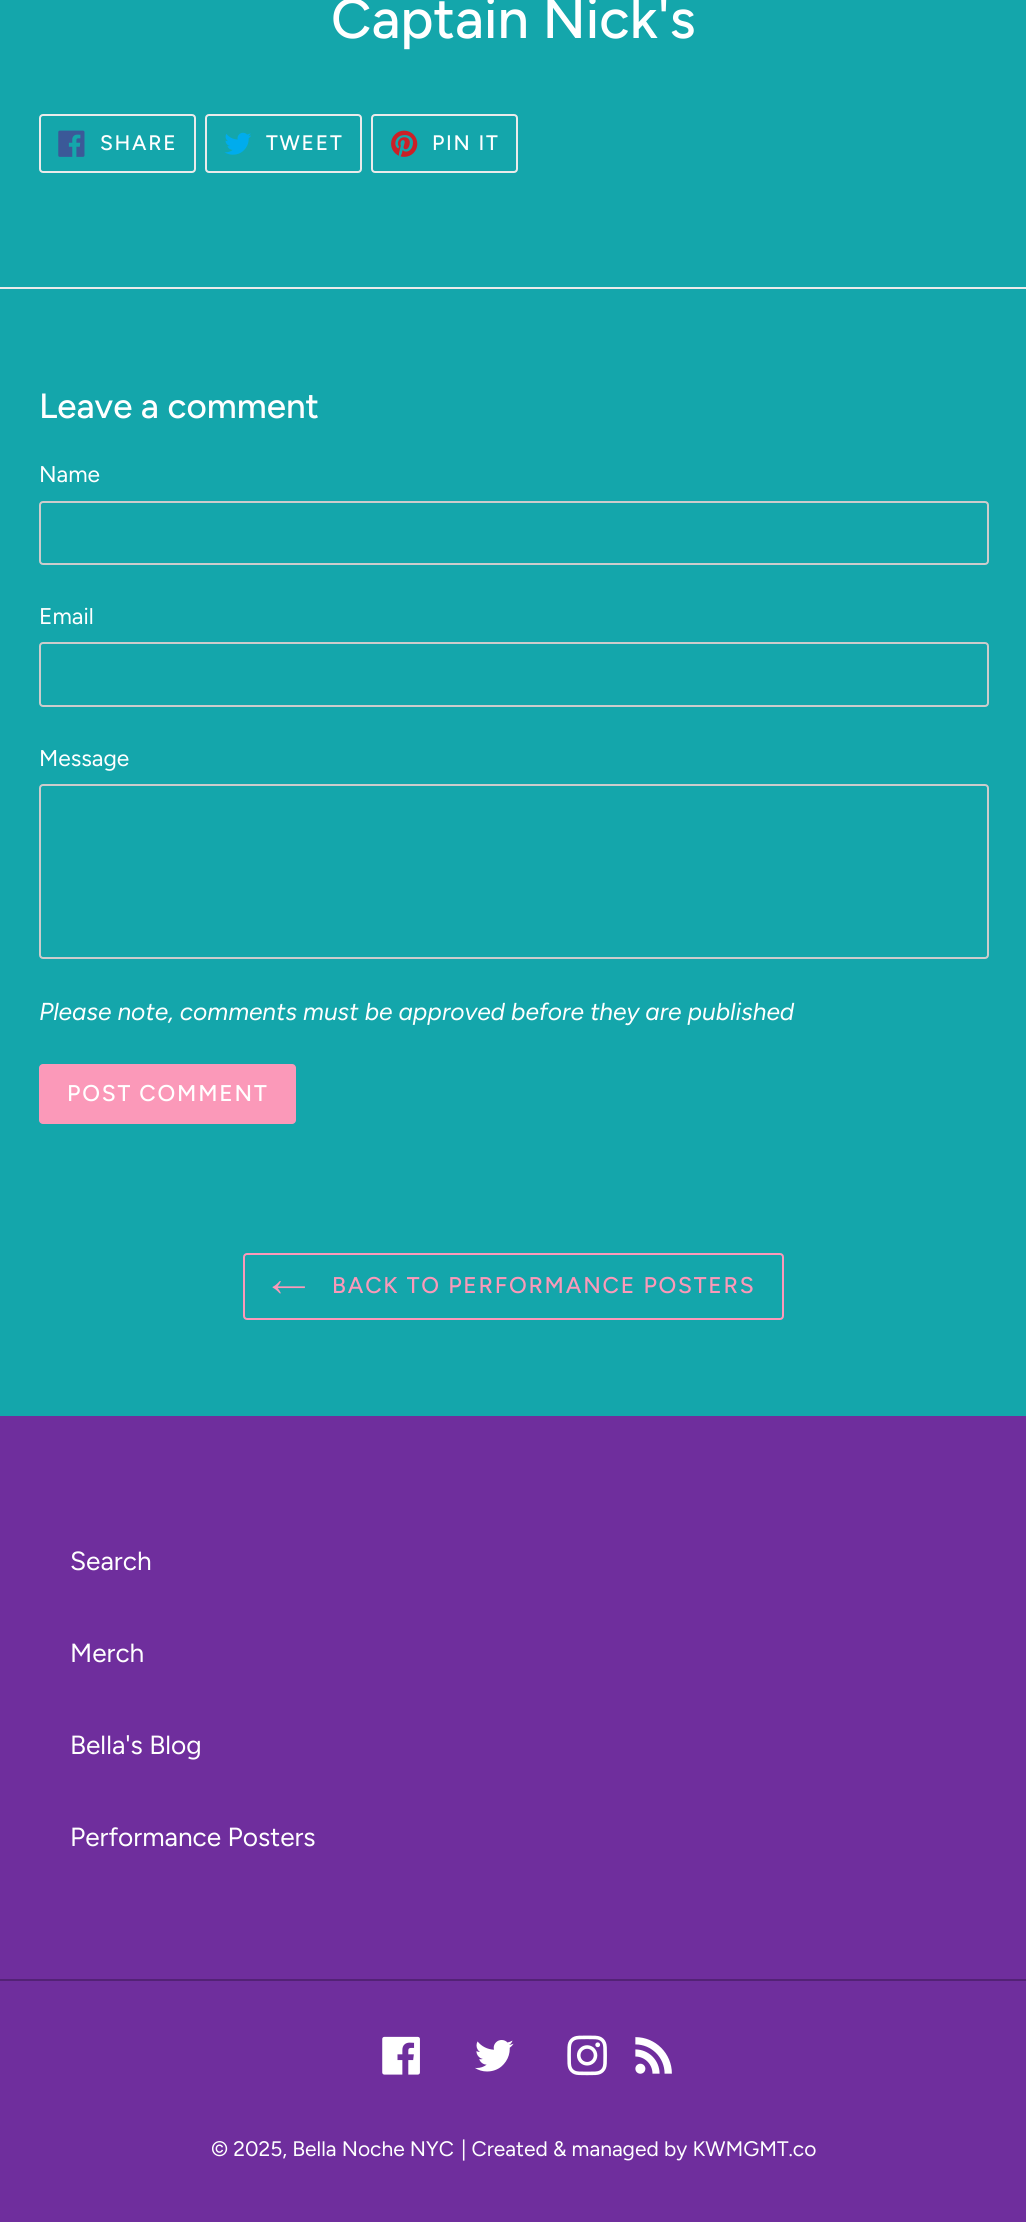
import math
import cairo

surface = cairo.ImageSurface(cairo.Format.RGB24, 1026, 2222)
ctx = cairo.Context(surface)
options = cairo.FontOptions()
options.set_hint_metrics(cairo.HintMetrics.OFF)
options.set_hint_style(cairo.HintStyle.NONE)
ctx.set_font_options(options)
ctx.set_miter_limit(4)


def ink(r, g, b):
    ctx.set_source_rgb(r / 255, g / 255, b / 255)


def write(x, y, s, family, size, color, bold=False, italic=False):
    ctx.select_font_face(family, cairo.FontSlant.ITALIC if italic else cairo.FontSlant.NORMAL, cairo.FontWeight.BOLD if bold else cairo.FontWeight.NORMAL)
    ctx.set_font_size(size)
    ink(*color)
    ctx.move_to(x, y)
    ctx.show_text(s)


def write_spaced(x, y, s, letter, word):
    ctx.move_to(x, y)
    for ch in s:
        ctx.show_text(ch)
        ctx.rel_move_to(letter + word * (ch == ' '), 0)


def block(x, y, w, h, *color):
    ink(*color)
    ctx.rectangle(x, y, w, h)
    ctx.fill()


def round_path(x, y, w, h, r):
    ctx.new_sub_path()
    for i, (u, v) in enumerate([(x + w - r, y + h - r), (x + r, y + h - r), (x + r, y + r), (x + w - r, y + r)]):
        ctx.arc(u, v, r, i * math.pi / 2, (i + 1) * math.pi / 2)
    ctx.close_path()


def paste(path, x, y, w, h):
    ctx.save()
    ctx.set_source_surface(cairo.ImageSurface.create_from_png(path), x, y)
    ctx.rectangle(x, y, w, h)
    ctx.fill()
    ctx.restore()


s1 = dict(family="Figtree Medium", size=56, color=(255, 255, 255))
s2 = dict(family="Figtree Medium", size=35, color=(255, 255, 255))
s3 = dict(family="Figtree", size=22.75, color=(255, 255, 255))
s4 = dict(family="Figtree", size=24.5, color=(255, 255, 255), italic=True)
s5 = dict(family="Figtree", size=26.25, color=(255, 255, 255))
s6 = dict(family="Figtree", size=21, color=(255, 255, 255))

ink(20, 166, 171)
ctx.paint()
write(331, 38, "Captain Nick's", **s1)
round_path(40, 115, 155, 57, 3)
ink(235, 235, 235)
ctx.stroke()
paste("pic1.png", 58, 130, 27, 27)
ctx.set_font_size(21)
ink(255, 255, 255)
write_spaced(100, 150, "SHARE", 1.75, 0)
round_path(206, 115, 155, 57, 3)
ink(235, 235, 235)
ctx.stroke()
paste("pic2.png", 224, 132, 27, 23)
ink(255, 255, 255)
write_spaced(266, 150, "TWEET", 1.75, 0)
round_path(372, 115, 145, 57, 3)
ink(235, 235, 235)
ctx.stroke()
paste("pic3.png", 391, 130, 27, 27)
ink(255, 255, 255)
write_spaced(432, 150, "PIN IT", 1.75, 0)
block(0, 287, 1026, 2, 235, 235, 235)
write(39, 418, "Leave a comment", **s2)
write(39, 482, "Name", **s3)
round_path(40, 502, 948, 62, 3)
ink(204, 204, 204)
ctx.stroke()
write(39, 624, "Email", **s3)
round_path(40, 643, 948, 63, 3)
ink(204, 204, 204)
ctx.stroke()
write(39, 766, "Message", **s3)
round_path(40, 785, 948, 173, 3)
ink(204, 204, 204)
ctx.stroke()
write(39, 1020, "Please note, comments must be approved before they are published", **s4)
ink(251, 153, 185)
round_path(39, 1064, 257, 60, 4)
ctx.fill()
ctx.select_font_face("Figtree Medium")
ctx.set_font_size(22.75)
ink(255, 255, 255)
write_spaced(67, 1101, "POST COMMENT", 1.8, 0)
round_path(244, 1254, 539, 65, 3)
ink(251, 153, 185)
ctx.stroke()
paste("pic4.png", 272, 1281, 33, 13)
write_spaced(332, 1293, "BACK TO PERFORMANCE POSTERS", 1.8, 0)
block(0, 1416, 1026, 806, 111, 46, 157)
write(70, 1570, "Search", **s5)
write(70, 1662, "Merch", **s5)
write(70, 1754, "Bella's Blog", **s5)
write(70, 1846, "Performance Posters", **s5)
block(0, 1979, 1026, 2, 83, 34, 118)
paste("pic5.png", 382, 2036, 38, 39)
paste("pic6.png", 475, 2040, 39, 32)
paste("pic7.png", 567, 2035, 40, 41)
paste("pic8.png", 635, 2037, 37, 37)
write(211, 2156, "© 2025, Bella Noche NYC", **s6)
write(461, 2156, "| Created & managed by KWMGMT.co", **s6)
surface.write_to_png("screenshot.png")
